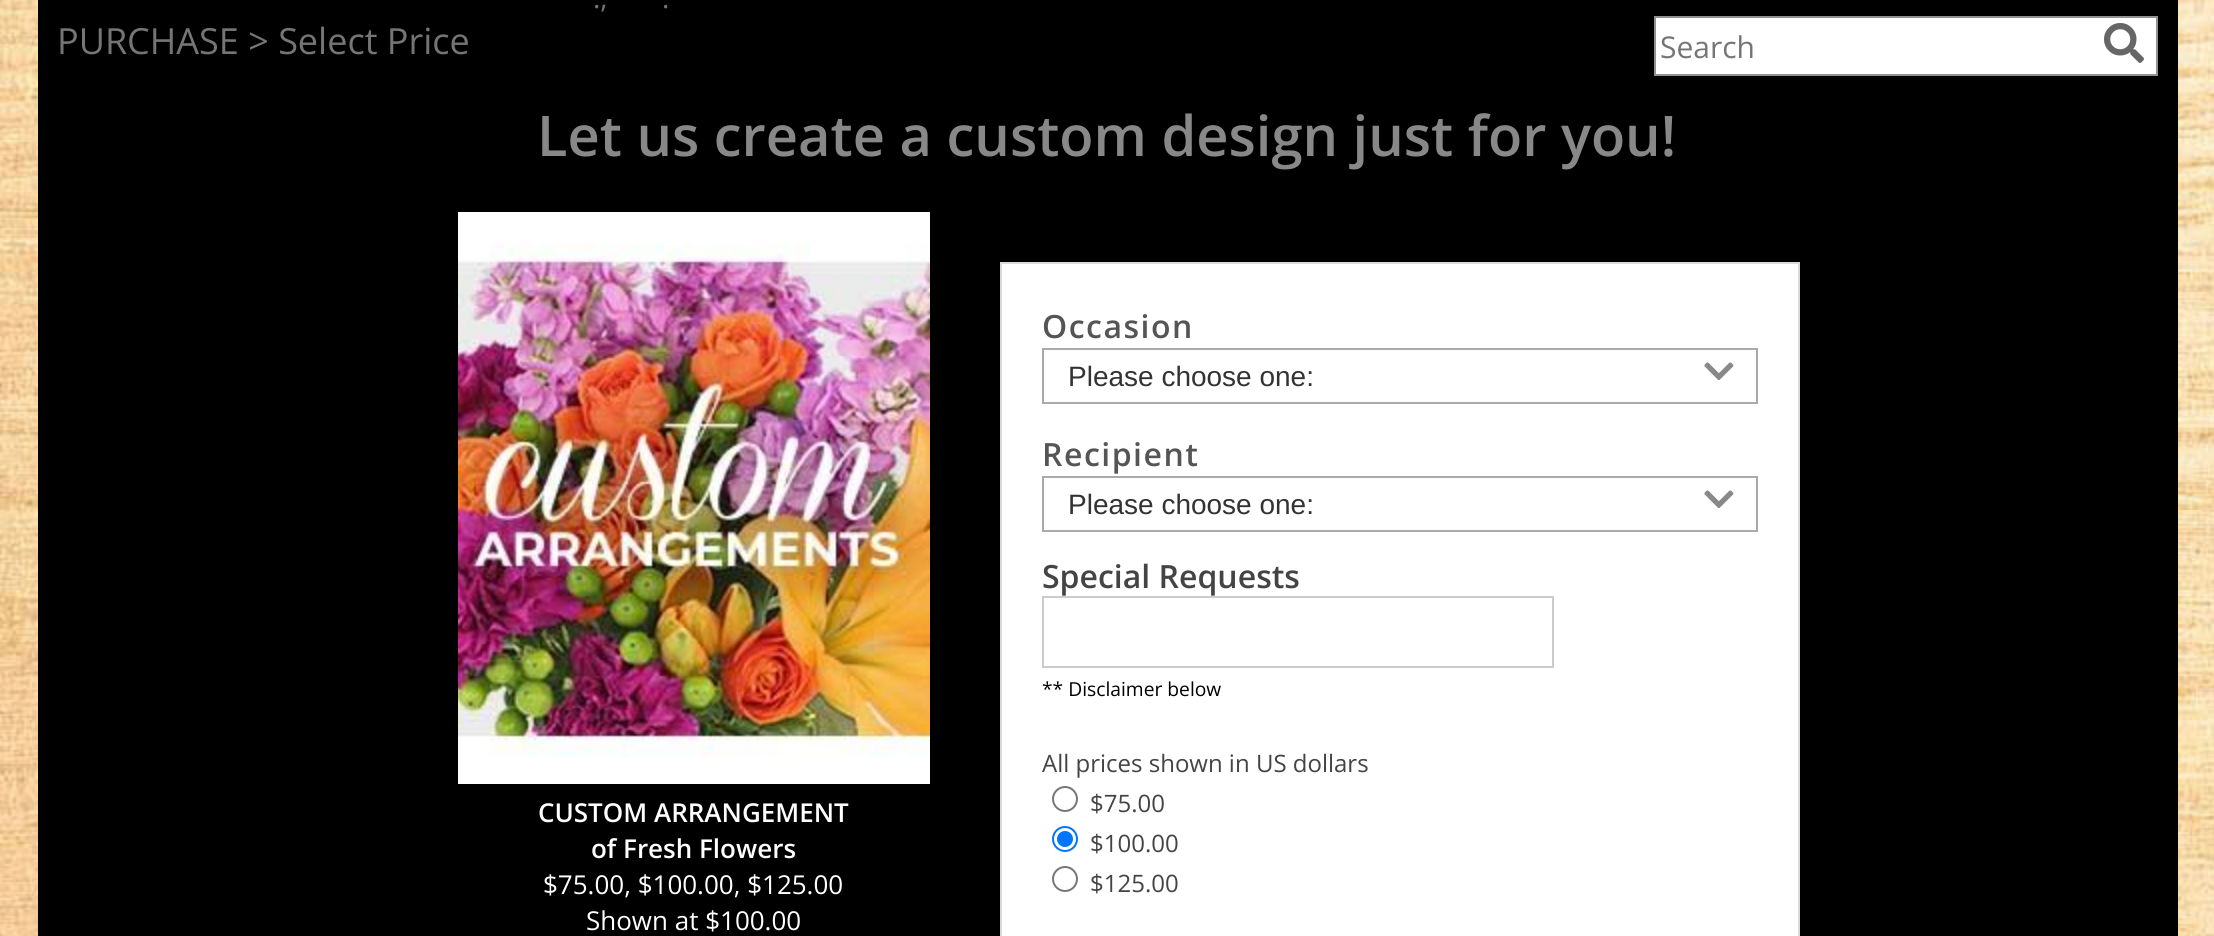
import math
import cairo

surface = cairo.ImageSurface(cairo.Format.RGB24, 2214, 936)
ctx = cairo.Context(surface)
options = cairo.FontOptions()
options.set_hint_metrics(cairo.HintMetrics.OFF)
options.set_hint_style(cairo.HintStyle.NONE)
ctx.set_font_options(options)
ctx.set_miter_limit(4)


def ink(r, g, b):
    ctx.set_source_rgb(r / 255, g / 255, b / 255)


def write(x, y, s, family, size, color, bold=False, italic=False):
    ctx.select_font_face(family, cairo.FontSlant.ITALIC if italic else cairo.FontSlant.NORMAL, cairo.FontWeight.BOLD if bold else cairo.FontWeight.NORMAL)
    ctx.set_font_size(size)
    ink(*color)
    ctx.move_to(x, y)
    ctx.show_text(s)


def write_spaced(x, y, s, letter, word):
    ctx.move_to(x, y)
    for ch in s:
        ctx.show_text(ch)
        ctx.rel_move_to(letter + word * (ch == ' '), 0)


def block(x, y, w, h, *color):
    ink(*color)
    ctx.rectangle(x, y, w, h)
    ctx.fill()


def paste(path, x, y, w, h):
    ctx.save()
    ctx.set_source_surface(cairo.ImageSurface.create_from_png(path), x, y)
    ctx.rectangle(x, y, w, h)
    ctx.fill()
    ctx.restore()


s1 = dict(family="Open Sans", size=28, color=(117, 117, 117))
s2 = dict(family="Open Sans", size=36, color=(117, 117, 117))
s3 = dict(family="Open Sans", size=30, color=(117, 117, 117))
s4 = dict(family="Open Sans SemiBold", size=56, color=(136, 136, 136))
s5 = dict(family="Open Sans SemiBold", size=26, color=(255, 255, 255))
s6 = dict(family="Open Sans", size=26, color=(255, 255, 255))
s7 = dict(family="Liberation Sans", size=28, color=(51, 51, 51))
s8 = dict(family="Open Sans SemiBold", size=32, color=(68, 68, 68))
s9 = dict(family="Open Sans", size=19.25, color=(0, 0, 0))
s10 = dict(family="Open Sans", size=24, color=(68, 68, 68))

ink(255, 255, 255)
ctx.paint()
paste("pic1.png", 0, 0, 2214, 936)
block(38, 0, 2140, 936, 0, 0, 0)
write(593, 8, ".,", **s1)
write(662, 8, ".", **s1)
write(57, 54, "PURCHASE > Select Price", **s2)
ink(255, 255, 255)
ctx.rectangle(1655, 17, 502, 58)
ctx.fill_preserve()
ink(145, 145, 145)
ctx.stroke()
write(1660, 58, "Search", **s3)
paste("pic2.png", 2104, 23, 40, 40)
write(537, 156, "Let us create a custom design just for you!", **s4)
paste("pic3.png", 458, 212, 472, 572)
write(538, 822, "CUSTOM ARRANGEMENT", **s5)
write(591, 858, "of Fresh Flowers", **s5)
write(543, 894, "$75.00, $100.00, $125.00", **s6)
write(586, 930, "Shown at $100.00", **s6)
ctx.rectangle(1001, 263, 798, 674)
ctx.fill_preserve()
ink(218, 218, 218)
ctx.stroke()
ctx.select_font_face("Open Sans SemiBold")
ctx.set_font_size(32)
ink(85, 85, 85)
write_spaced(1042, 338, "Occasion", 1.5, 0)
ctx.rectangle(1043, 349, 714, 54)
ink(170, 170, 170)
ctx.stroke()
write(1068, 386, "Please choose one:", **s7)
paste("pic4.png", 1704, 362, 30, 18)
ctx.select_font_face("Open Sans SemiBold")
ctx.set_font_size(32)
ink(85, 85, 85)
write_spaced(1042, 466, "Recipient", 1.5, 0)
ctx.rectangle(1043, 477, 714, 54)
ink(170, 170, 170)
ctx.stroke()
write(1068, 514, "Please choose one:", **s7)
paste("pic4.png", 1704, 490, 30, 18)
write(1042, 588, "Special Requests", **s8)
ctx.rectangle(1043, 597, 510, 70)
ink(204, 204, 204)
ctx.stroke()
write(1042, 696, "** Disclaimer below", **s9)
write(1042, 772, "All prices shown in US dollars", **s10)
ctx.new_path()
ctx.arc(1065, 799, 12, 0, 2 * math.pi)
ink(118, 118, 118)
ctx.stroke()
write(1090, 812, "$75.00", **s10)
ctx.new_path()
ctx.arc(1065, 839, 12, 0, 2 * math.pi)
ink(0, 117, 255)
ctx.stroke()
ctx.arc(1065, 839, 8, 0, 2 * math.pi)
ctx.fill()
write(1090, 852, "$100.00", **s10)
ctx.new_path()
ctx.arc(1065, 879, 12, 0, 2 * math.pi)
ink(118, 118, 118)
ctx.stroke()
write(1090, 892, "$125.00", **s10)
surface.write_to_png("screenshot.png")
